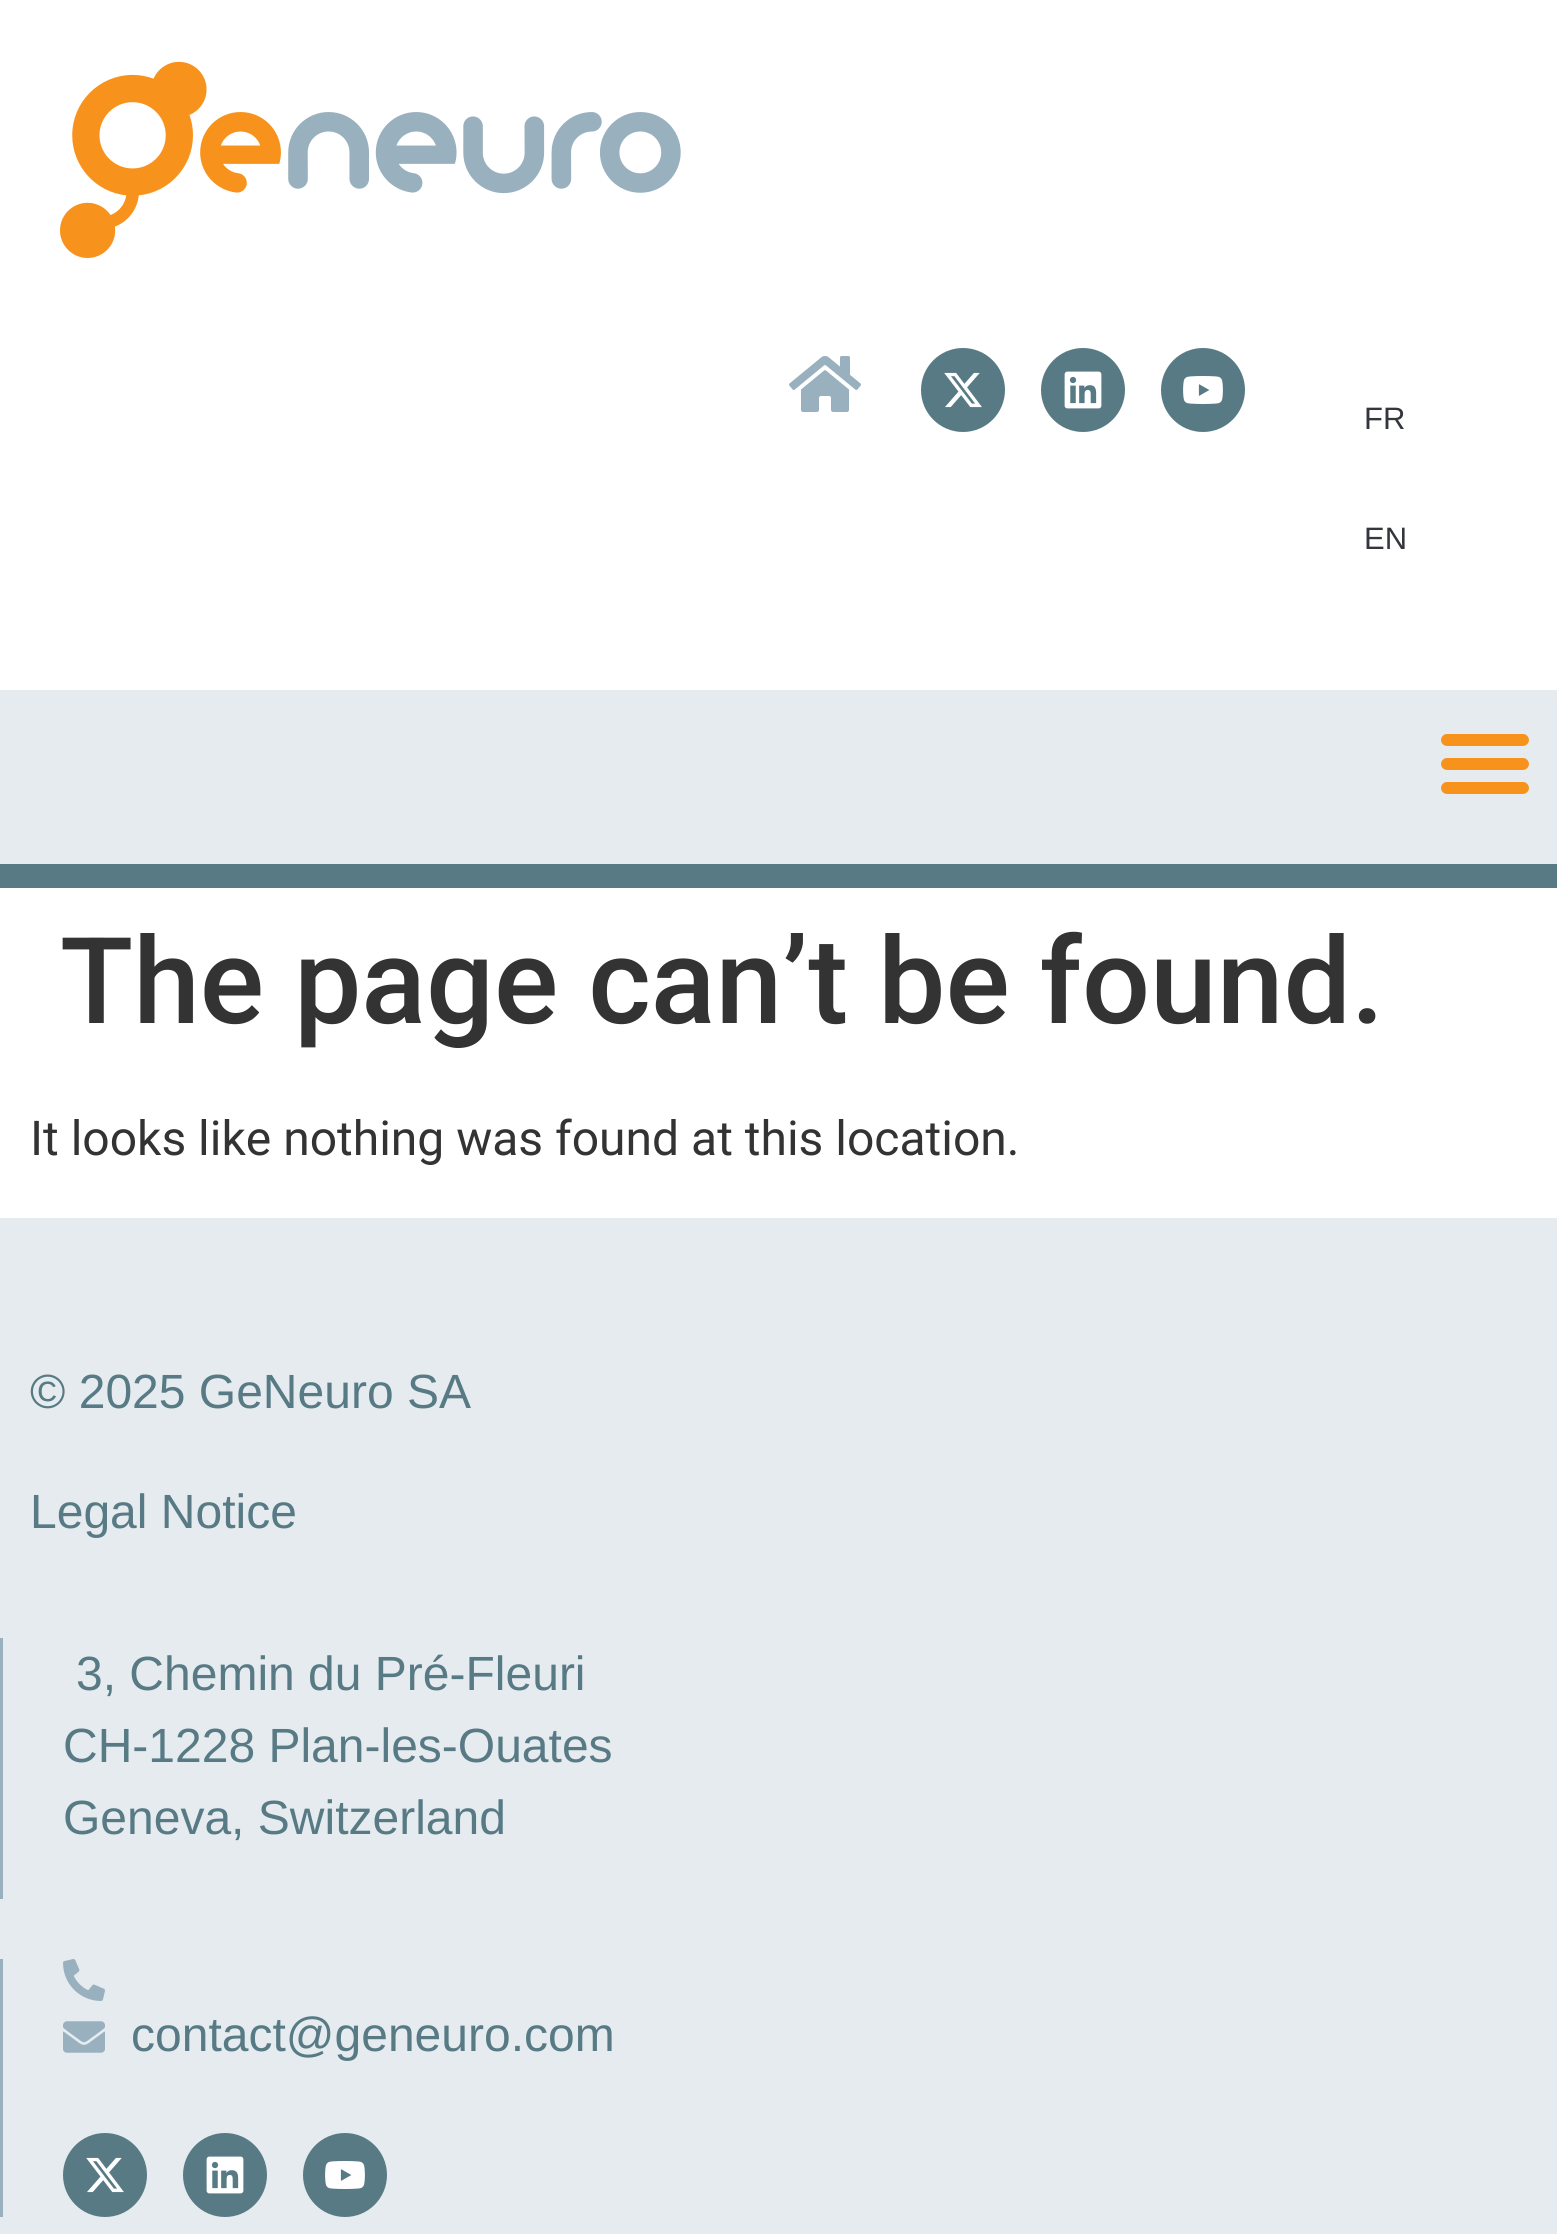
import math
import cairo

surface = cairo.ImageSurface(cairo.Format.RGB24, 1557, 2234)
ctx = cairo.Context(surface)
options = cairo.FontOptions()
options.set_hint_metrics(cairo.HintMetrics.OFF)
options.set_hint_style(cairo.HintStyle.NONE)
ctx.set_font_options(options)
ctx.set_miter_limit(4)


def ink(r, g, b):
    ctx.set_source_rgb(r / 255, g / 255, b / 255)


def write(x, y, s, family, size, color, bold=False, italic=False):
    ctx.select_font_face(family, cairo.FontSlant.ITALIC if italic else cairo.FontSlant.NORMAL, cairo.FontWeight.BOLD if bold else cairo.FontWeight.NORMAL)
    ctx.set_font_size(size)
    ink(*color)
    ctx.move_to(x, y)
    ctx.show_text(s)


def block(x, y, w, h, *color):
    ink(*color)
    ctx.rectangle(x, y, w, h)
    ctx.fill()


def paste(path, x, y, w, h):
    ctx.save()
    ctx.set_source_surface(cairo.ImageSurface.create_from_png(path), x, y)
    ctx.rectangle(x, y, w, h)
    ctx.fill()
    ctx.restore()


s1 = dict(family="Liberation Sans", size=31, color=(51, 55, 61))
s2 = dict(family="Roboto Medium", size=120, color=(51, 51, 51))
s3 = dict(family="Roboto", size=48, color=(51, 51, 51))
s4 = dict(family="Liberation Sans", size=48, color=(87, 122, 132))

ink(255, 255, 255)
ctx.paint()
paste("pic1.png", 60, 61, 621, 197)
paste("pic2.png", 789, 356, 72, 56)
ink(87, 122, 132)
ctx.arc(963, 390, 42, 0, 2 * math.pi)
ctx.fill()
paste("pic3.png", 944, 372, 38, 36)
ctx.arc(1083, 390, 42, 0, 2 * math.pi)
ctx.fill()
paste("pic4.png", 1064, 371, 38, 38)
ctx.arc(1203, 390, 42, 0, 2 * math.pi)
ctx.fill()
paste("pic5.png", 1183, 376, 40, 28)
write(1364, 429, "FR", **s1)
write(1364, 549, "EN", **s1)
block(0, 690, 1557, 174, 229, 235, 239)
block(0, 864, 1557, 24, 87, 122, 132)
paste("pic6.png", 1441, 734, 88, 60)
write(60, 1023, "The page can’t be found.", **s2)
write(30, 1155, "It looks like nothing was found at this location.", **s3)
block(0, 1218, 1557, 1016, 229, 235, 239)
write(30, 1408, "© 2025 GeNeuro SA", **s4)
write(30, 1528, "Legal Notice", **s4)
block(0, 1638, 3, 261, 153, 176, 190)
write(76, 1690, "3, Chemin du Pré-Fleuri", **s4)
write(63, 1762, "CH-1228 Plan-les-Ouates", **s4)
write(63, 1834, "Geneva, Switzerland", **s4)
block(0, 1959, 3, 258, 153, 176, 190)
paste("pic7.png", 63, 1959, 42, 42)
paste("pic8.png", 63, 2021, 42, 32)
write(131, 2051, "contact@geneuro.com", **s4)
ctx.new_path()
ctx.arc(105, 2175, 42, 0, 2 * math.pi)
ctx.fill()
paste("pic3.png", 86, 2157, 38, 36)
ctx.arc(225, 2175, 42, 0, 2 * math.pi)
ctx.fill()
paste("pic4.png", 206, 2156, 38, 38)
ctx.arc(345, 2175, 42, 0, 2 * math.pi)
ctx.fill()
paste("pic5.png", 325, 2161, 40, 28)
surface.write_to_png("screenshot.png")
